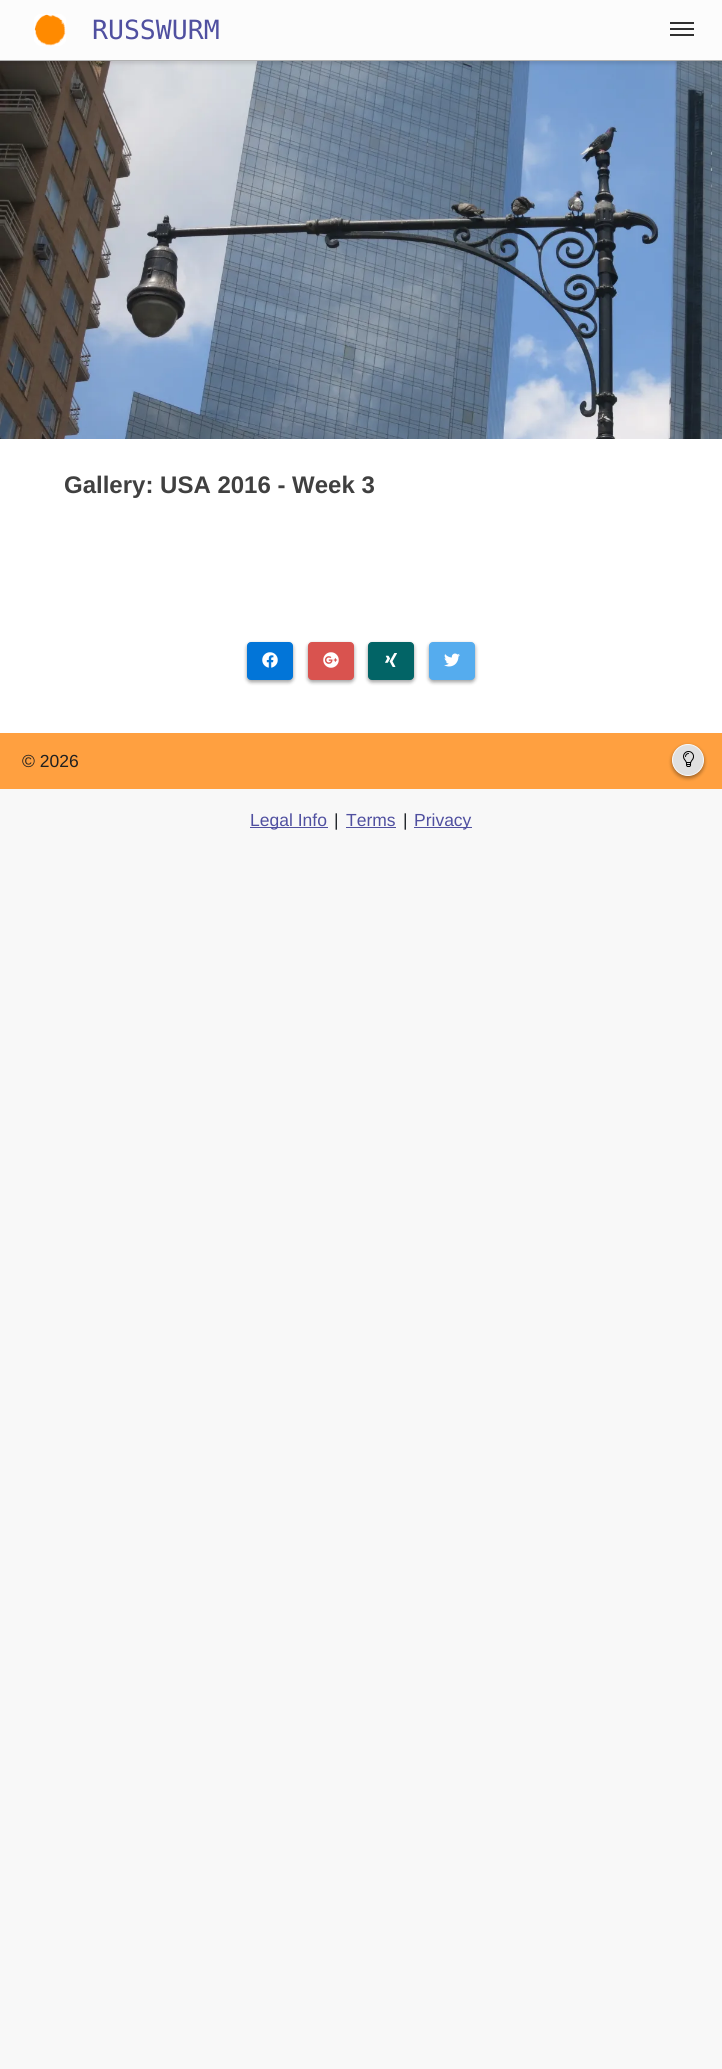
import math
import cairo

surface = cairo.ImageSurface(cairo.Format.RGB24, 722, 2069)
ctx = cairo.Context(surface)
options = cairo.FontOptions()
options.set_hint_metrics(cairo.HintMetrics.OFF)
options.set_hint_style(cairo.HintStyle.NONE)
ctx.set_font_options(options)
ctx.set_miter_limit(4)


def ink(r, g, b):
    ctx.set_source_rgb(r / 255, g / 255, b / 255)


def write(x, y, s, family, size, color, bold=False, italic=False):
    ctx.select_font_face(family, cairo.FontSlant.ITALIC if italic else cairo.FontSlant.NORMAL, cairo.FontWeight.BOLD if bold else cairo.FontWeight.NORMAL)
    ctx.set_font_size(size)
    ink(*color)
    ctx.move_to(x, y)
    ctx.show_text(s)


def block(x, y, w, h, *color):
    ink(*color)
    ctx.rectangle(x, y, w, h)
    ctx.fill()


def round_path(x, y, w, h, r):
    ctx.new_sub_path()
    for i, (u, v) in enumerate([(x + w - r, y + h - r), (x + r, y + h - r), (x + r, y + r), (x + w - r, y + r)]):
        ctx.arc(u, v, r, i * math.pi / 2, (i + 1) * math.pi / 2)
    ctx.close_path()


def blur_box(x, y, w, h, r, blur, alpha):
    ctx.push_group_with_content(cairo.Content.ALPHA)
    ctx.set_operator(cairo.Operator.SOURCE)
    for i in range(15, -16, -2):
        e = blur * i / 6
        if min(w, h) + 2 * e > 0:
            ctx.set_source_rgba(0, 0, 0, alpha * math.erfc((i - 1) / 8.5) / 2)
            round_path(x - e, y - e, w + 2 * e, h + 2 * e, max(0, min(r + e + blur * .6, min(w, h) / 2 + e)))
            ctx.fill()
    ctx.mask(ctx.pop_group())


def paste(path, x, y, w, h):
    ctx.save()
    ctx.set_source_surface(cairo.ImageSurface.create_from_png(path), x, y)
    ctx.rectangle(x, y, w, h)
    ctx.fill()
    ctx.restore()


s1 = dict(family="DejaVu Sans Mono", size=26.5, color=(80, 80, 160))
s2 = dict(family="Liberation Sans", size=24, color=(64, 64, 64), bold=True)
s3 = dict(family="Liberation Sans", size=17.5, color=(32, 32, 32))
s4 = dict(family="Liberation Sans", size=17.5, color=(80, 80, 160))
s5 = dict(family="Liberation Sans", size=17.5, color=(33, 37, 41))

ink(248, 248, 248)
ctx.paint()
paste("pic2.png", 0, 61, 722, 378)
ink(0, 0, 0)
blur_box(0, 3, 722, 61, 0, 1.5, 0.1)
block(0, 0, 722, 60, 252, 252, 252)
block(0, 60, 722, 1, 176, 176, 176)
paste("pic1.png", 34, 14, 32, 32)
write(92, 39, "RUSSWURM", **s1)
block(670, 28, 24, 2, 48, 48, 48)
block(670, 22, 24, 2, 48, 48, 48)
block(670, 34, 24, 2, 48, 48, 48)
block(0, 439, 722, 294, 255, 255, 255)
write(64, 493, "Gallery: USA 2016 - Week 3", **s2)
ink(0, 0, 0)
blur_box(247, 644, 46, 38, 4, 2, 0.14)
blur_box(247, 644, 46, 38, 4, 2, 0.28)
ink(2, 117, 216)
round_path(247.5, 642.5, 45, 37, 3.5)
ctx.fill_preserve()
ctx.set_line_width(1)
ctx.stroke()
paste("pic3.png", 262, 652, 16, 16)
ink(0, 0, 0)
blur_box(308, 644, 46, 38, 4, 2, 0.14)
blur_box(308, 644, 46, 38, 4, 2, 0.28)
ink(217, 83, 79)
round_path(308.5, 642.5, 45, 37, 3.5)
ctx.fill_preserve()
ctx.stroke()
paste("pic4.png", 323, 652, 16, 16)
ink(0, 0, 0)
blur_box(368, 644, 46, 38, 4, 2, 0.14)
blur_box(368, 644, 46, 38, 4, 2, 0.28)
ink(2, 100, 102)
round_path(368.5, 642.5, 45, 37, 3.5)
ctx.fill_preserve()
ctx.stroke()
paste("pic5.png", 385, 653, 12, 14)
ink(0, 0, 0)
blur_box(429, 644, 46, 38, 4, 2, 0.14)
blur_box(429, 644, 46, 38, 4, 2, 0.28)
ink(85, 172, 238)
round_path(429.5, 642.5, 45, 37, 3.5)
ctx.fill_preserve()
ctx.stroke()
paste("pic6.png", 444, 653, 16, 14)
block(0, 733, 722, 56, 255, 160, 64)
write(22, 767, "© 2026", **s3)
ink(0, 0, 0)
blur_box(672, 746, 32, 32, 16, 2, 0.14)
blur_box(672, 746, 32, 32, 16, 2, 0.28)
ink(224, 224, 224)
ctx.arc(688, 760, 15.5, 0, 2 * math.pi)
ctx.fill_preserve()
ink(248, 249, 250)
ctx.stroke()
paste("pic7.png", 683, 751, 11, 16)
block(250, 827, 78, 1, 80, 80, 160)
write(250, 826, "Legal Info", **s4)
write(334, 826, "|", **s5)
write(346, 826, "Terms", **s4)
block(346, 827, 50, 1, 80, 80, 160)
write(403, 826, "|", **s5)
block(414, 827, 58, 1, 80, 80, 160)
write(414, 826, "Privacy", **s4)
surface.write_to_png("screenshot.png")
